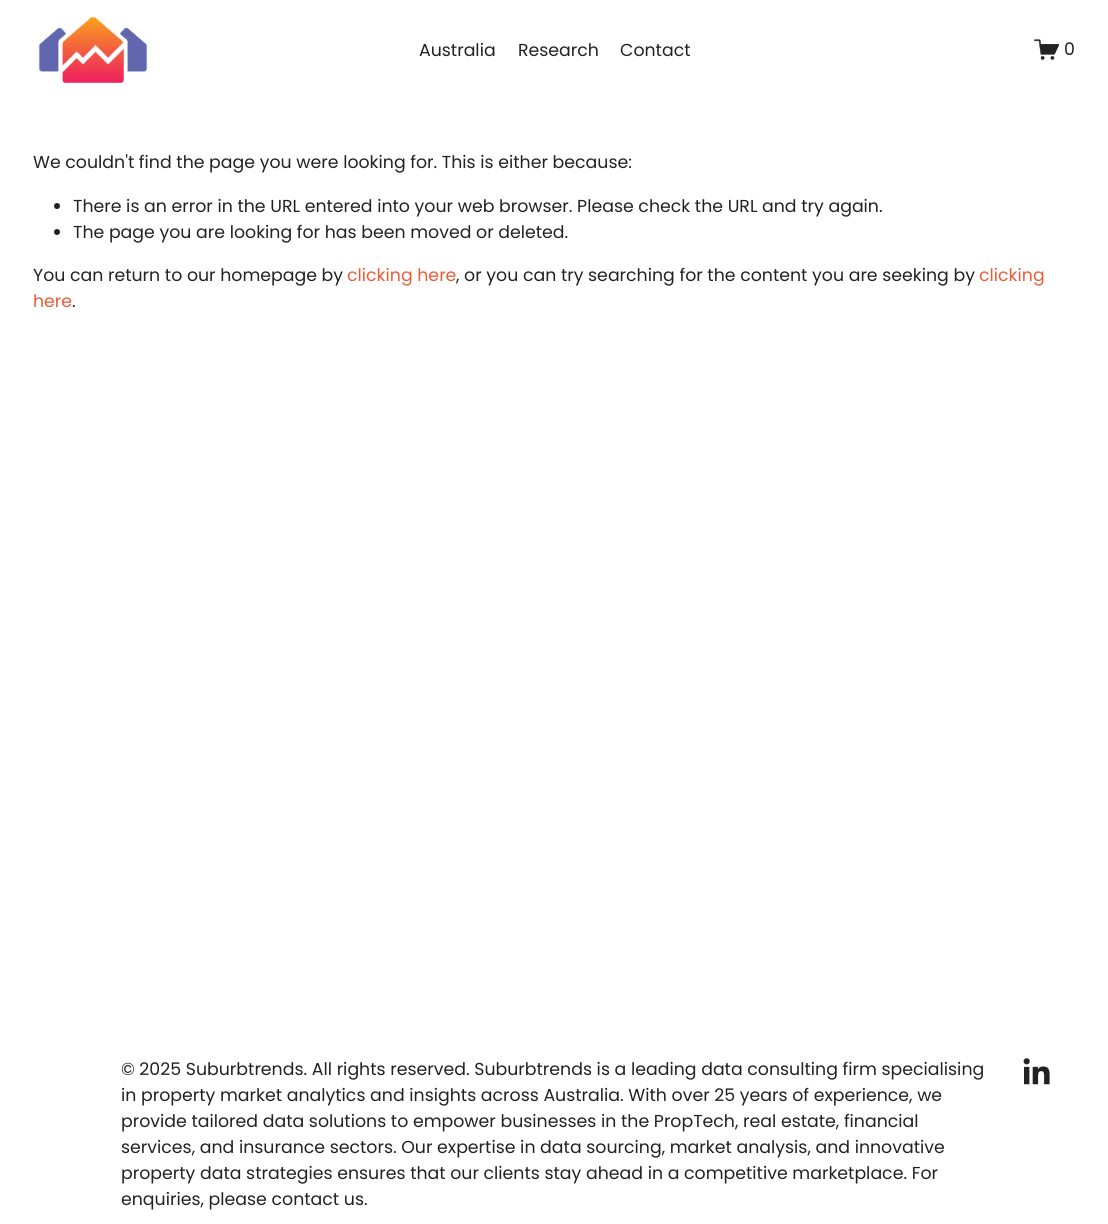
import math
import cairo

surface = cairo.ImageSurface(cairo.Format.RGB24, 1108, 1224)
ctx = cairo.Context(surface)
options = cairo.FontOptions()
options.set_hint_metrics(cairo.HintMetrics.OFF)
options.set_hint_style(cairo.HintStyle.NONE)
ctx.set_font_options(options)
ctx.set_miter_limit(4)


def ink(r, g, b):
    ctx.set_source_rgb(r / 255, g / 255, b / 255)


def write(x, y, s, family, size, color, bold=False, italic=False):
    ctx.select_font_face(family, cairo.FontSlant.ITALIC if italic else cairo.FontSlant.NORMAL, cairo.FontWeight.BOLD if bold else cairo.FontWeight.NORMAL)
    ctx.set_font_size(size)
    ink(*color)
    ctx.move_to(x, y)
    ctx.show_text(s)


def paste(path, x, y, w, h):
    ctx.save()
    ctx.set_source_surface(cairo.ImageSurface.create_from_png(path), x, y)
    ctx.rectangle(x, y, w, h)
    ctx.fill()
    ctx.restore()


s1 = dict(family="Poppins", size=17.35, color=(34, 34, 34))
s2 = dict(family="Poppins", size=17.35, color=(236, 92, 57))

ink(255, 255, 255)
ctx.paint()
paste("pic1.png", 38, 16, 110, 67)
write(419, 56, "Australia", **s1)
write(518, 56, "Research", **s1)
write(620, 56, "Contact", **s1)
paste("pic2.png", 1034, 39, 25, 21)
write(1064, 55, "0", **s1)
write(33, 168, "We couldn't find the page you were looking for. This is either because:", **s1)
ctx.new_path()
ctx.arc(57, 206, 3, 0, 2 * math.pi)
ctx.fill()
write(73, 212, "There is an error in the URL entered into your web browser. Please check the URL and try again.", **s1)
ctx.new_path()
ctx.arc(57, 232, 3, 0, 2 * math.pi)
ctx.fill()
write(73, 238, "The page you are looking for has been moved or deleted.", **s1)
write(33, 281, "You can return to our homepage by", **s1)
write(347, 281, "clicking here", **s2)
write(456, 281, ", or you can try searching for the content you are seeking by", **s1)
write(979, 281, "clicking", **s2)
write(33, 307, "here", **s2)
write(72, 307, ".", **s1)
write(121, 1075, "© 2025 Suburbtrends. All rights reserved. Suburbtrends is a leading data consulting firm specialising", **s1)
write(121, 1101, "in property market analytics and insights across Australia. With over 25 years of experience, we", **s1)
write(121, 1127, "provide tailored data solutions to empower businesses in the PropTech, real estate, financial", **s1)
write(121, 1153, "services, and insurance sectors. Our expertise in data sourcing, market analysis, and innovative", **s1)
write(121, 1179, "property data strategies ensures that our clients stay ahead in a competitive marketplace. For", **s1)
write(121, 1205, "enquiries, please contact us.", **s1)
paste("pic3.png", 1023, 1058, 27, 27)
surface.write_to_png("screenshot.png")
